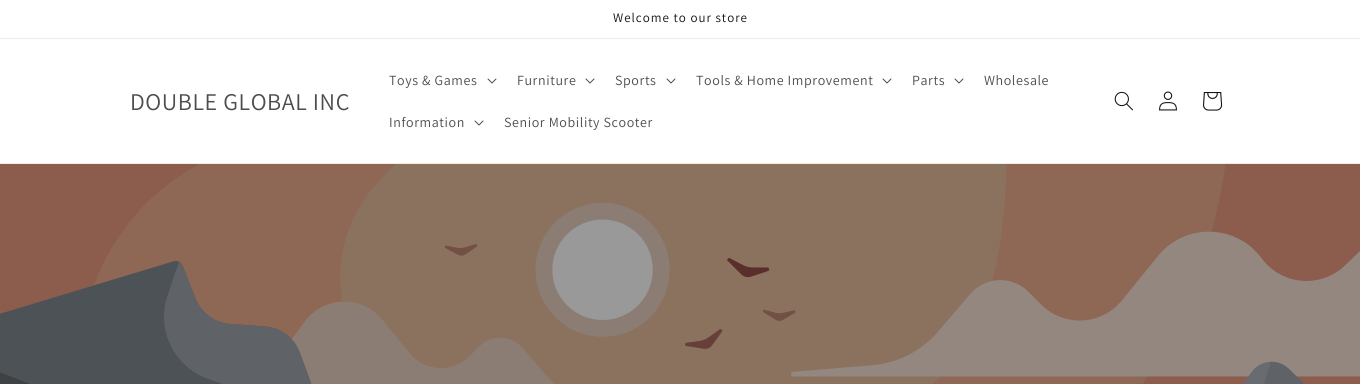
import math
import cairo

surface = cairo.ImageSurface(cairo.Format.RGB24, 1360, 384)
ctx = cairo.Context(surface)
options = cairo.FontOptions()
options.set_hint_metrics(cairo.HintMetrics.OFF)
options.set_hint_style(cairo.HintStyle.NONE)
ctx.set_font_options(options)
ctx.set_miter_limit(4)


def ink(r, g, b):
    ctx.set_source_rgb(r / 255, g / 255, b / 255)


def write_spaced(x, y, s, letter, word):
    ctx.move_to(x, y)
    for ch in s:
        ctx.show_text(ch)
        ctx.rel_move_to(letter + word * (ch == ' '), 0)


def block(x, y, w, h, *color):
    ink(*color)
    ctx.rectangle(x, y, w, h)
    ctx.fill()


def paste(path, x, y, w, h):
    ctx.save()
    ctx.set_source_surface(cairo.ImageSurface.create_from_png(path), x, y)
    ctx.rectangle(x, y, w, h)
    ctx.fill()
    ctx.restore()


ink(255, 255, 255)
ctx.paint()
block(0, 38, 1360, 1, 236, 236, 236)
ctx.select_font_face("Assistant")
ctx.set_font_size(13)
ink(18, 18, 18)
write_spaced(613, 22, "Welcome to our store", 1, 0)
block(0, 163, 1360, 1, 236, 236, 236)
ctx.set_font_size(24)
ink(77, 77, 77)
write_spaced(130, 110, "DOUBLE GLOBAL INC", 0.6, 0)
ctx.set_font_size(14)
write_spaced(389, 85, "Toys & Games", 0.6, 0)
paste("pic1.png", 487, 78, 10, 6)
write_spaced(517, 85, "Furniture", 0.6, 0)
paste("pic1.png", 585, 78, 10, 6)
write_spaced(615, 85, "Sports", 0.6, 0)
paste("pic1.png", 666, 78, 10, 6)
write_spaced(696, 85, "Tools & Home Improvement", 0.6, 0)
paste("pic1.png", 882, 78, 10, 6)
write_spaced(912, 85, "Parts", 0.6, 0)
paste("pic1.png", 954, 78, 10, 6)
write_spaced(984, 85, "Wholesale", 0.6, 0)
write_spaced(389, 127, "Information", 0.6, 0)
paste("pic1.png", 474, 120, 10, 6)
write_spaced(504, 127, "Senior Mobility Scooter", 0.6, 0)
paste("pic2.png", 1114, 91, 19, 20)
paste("pic3.png", 1159, 91, 18, 20)
paste("pic4.png", 1203, 92, 20, 19)
paste("pic5.png", 0, 164, 1360, 220)
surface.write_to_png("screenshot.png")
